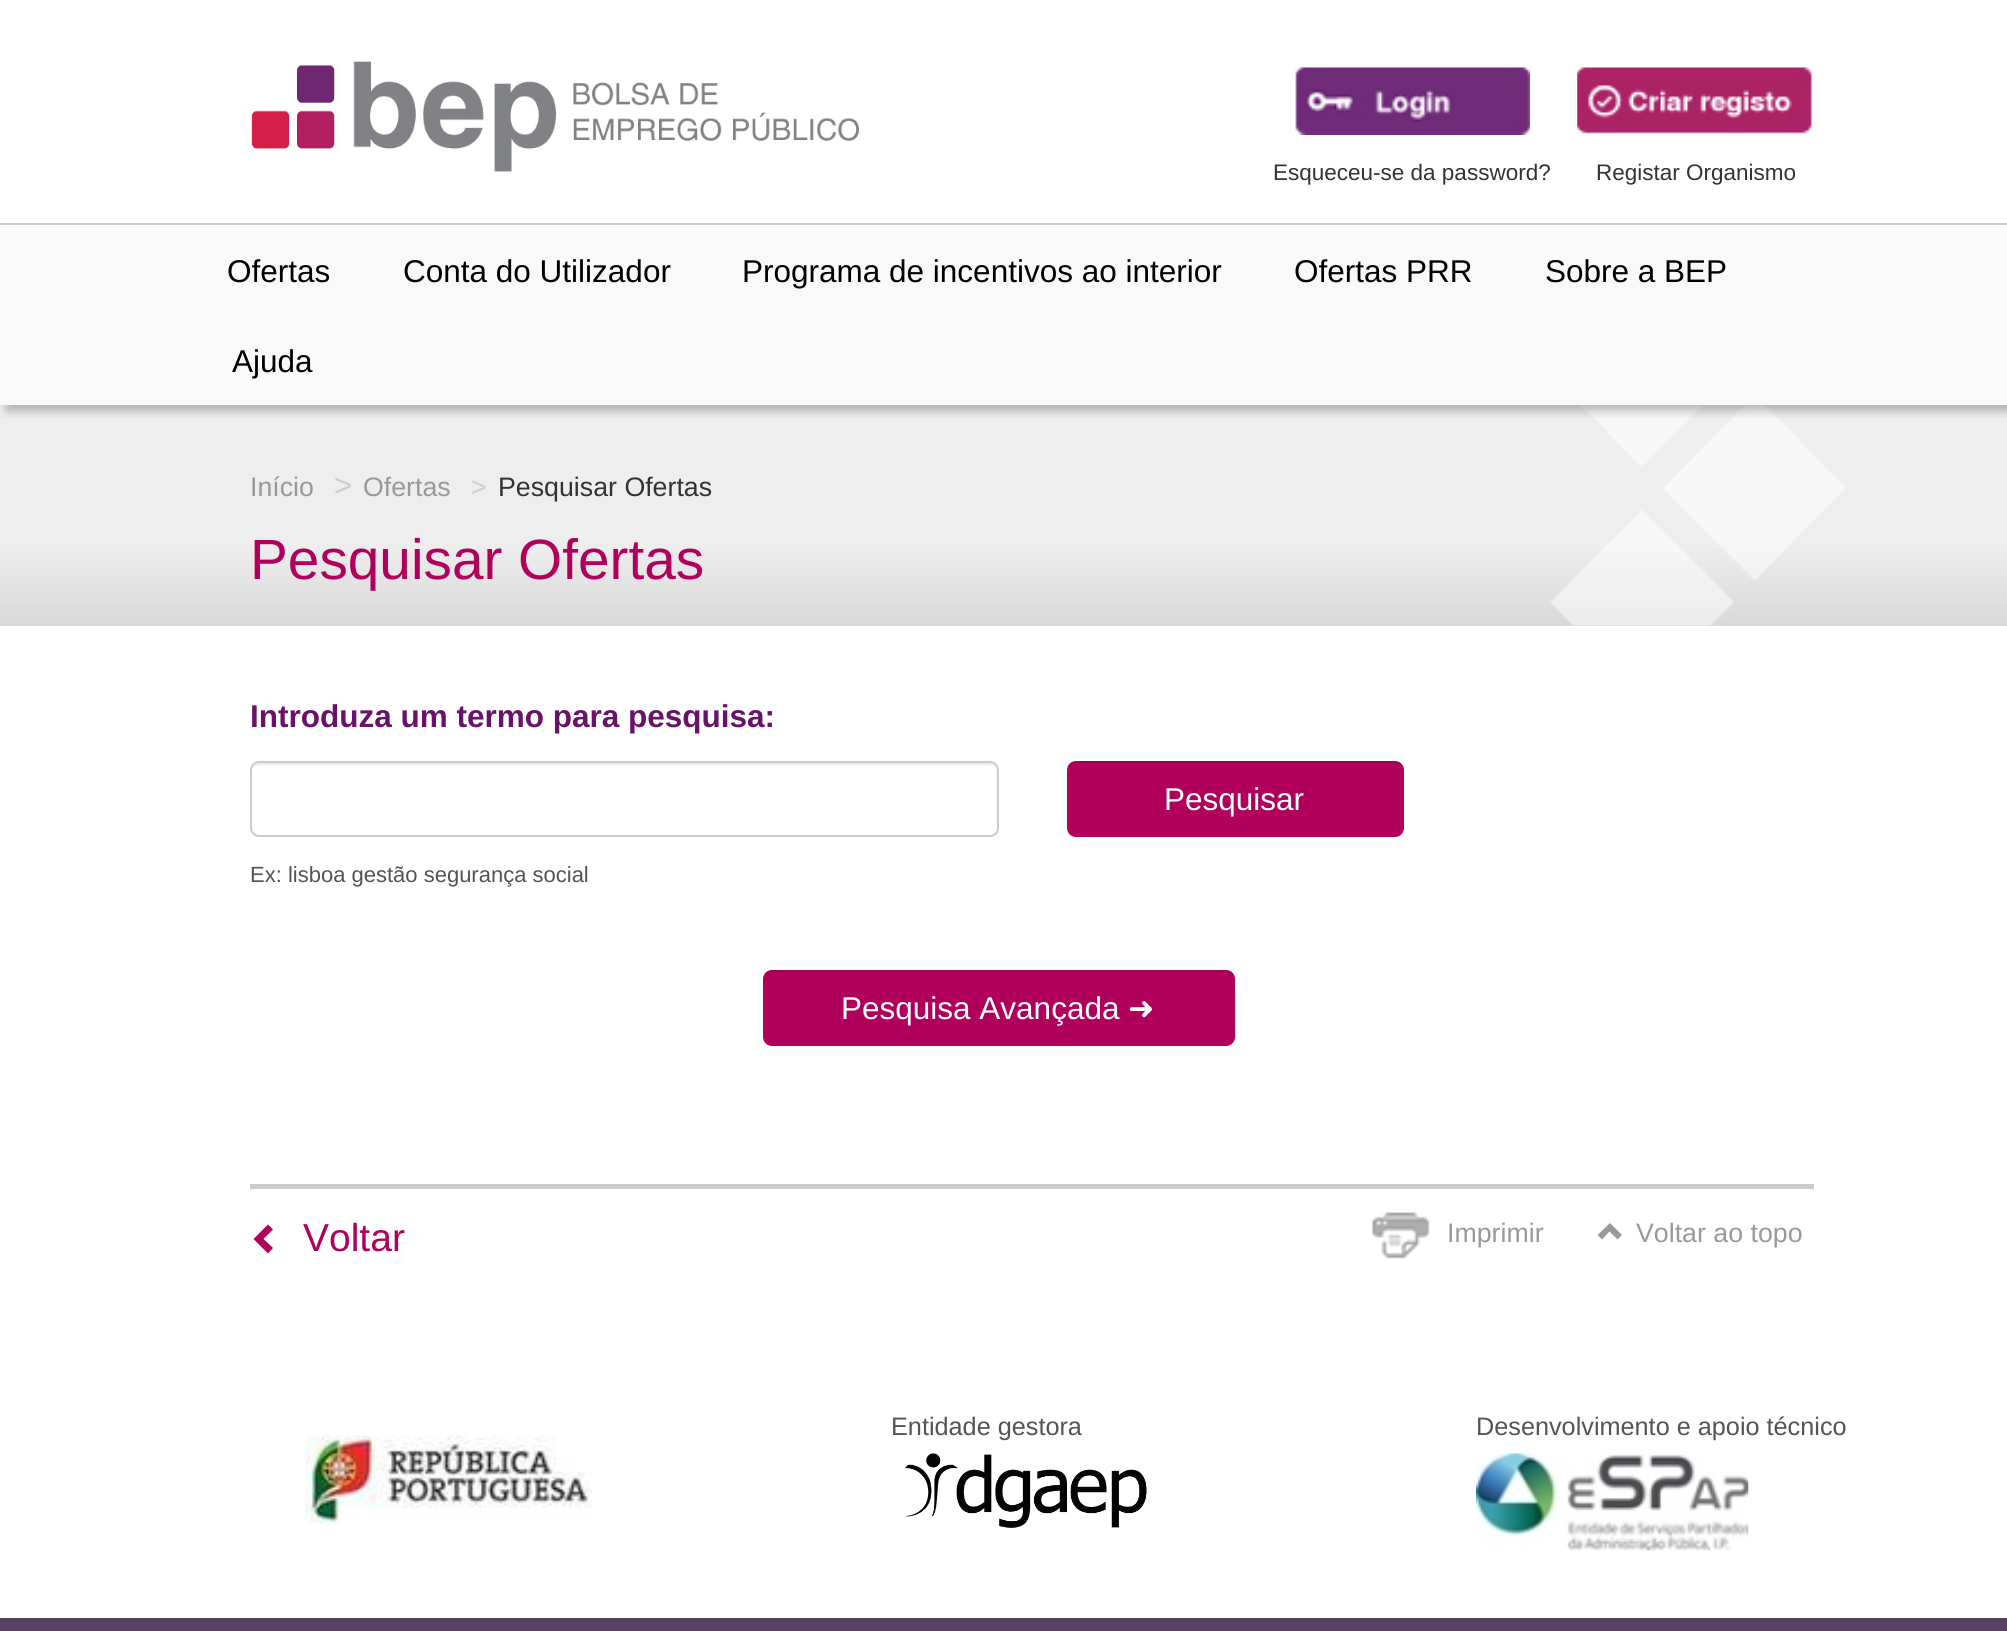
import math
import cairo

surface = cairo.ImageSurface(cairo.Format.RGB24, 2007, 1631)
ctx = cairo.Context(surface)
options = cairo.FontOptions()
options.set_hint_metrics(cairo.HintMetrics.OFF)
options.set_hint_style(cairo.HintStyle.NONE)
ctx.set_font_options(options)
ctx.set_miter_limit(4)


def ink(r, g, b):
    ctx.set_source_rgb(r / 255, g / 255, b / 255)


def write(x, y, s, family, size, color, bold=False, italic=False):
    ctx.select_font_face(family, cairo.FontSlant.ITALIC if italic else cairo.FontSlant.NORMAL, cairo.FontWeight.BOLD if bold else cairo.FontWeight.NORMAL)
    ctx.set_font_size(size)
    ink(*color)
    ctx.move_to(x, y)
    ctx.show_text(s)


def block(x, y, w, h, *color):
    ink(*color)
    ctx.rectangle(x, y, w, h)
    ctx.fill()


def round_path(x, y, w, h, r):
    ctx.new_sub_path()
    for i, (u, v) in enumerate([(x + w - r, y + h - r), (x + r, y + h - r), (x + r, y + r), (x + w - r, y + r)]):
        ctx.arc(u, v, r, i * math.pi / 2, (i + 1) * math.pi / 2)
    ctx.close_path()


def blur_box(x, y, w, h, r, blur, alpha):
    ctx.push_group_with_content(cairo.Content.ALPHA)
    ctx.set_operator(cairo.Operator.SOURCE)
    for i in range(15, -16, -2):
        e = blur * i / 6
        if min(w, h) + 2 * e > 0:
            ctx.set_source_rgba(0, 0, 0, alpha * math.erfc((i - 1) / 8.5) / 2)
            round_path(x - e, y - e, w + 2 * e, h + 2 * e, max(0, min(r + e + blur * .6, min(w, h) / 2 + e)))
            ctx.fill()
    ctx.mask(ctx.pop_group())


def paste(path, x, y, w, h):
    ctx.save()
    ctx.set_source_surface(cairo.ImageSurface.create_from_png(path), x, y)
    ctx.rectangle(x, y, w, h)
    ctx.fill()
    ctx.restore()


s1 = dict(family="Liberation Sans", size=22.5, color=(51, 51, 51))
s2 = dict(family="Liberation Sans", size=31.5, color=(0, 0, 0))
s3 = dict(family="Liberation Sans", size=26.75, color=(153, 153, 153))
s4 = dict(family="Liberation Sans", size=31.5, color=(204, 204, 204))
s5 = dict(family="Liberation Sans", size=26.75, color=(204, 204, 204))
s6 = dict(family="Liberation Sans", size=26.75, color=(51, 51, 51))
s7 = dict(family="Liberation Sans", size=56.75, color=(176, 0, 92))
s8 = dict(family="Liberation Sans", size=31.5, color=(106, 18, 106), bold=True)
s9 = dict(family="Liberation Sans", size=31.5, color=(255, 255, 255))
s10 = dict(family="Liberation Sans", size=22, color=(84, 84, 84))
s11 = dict(family="DejaVu Sans", size=31.5, color=(255, 255, 255))
s12 = dict(family="Liberation Sans", size=39, color=(176, 0, 92))
s13 = dict(family="Liberation Sans", size=25.25, color=(84, 84, 84))

ink(255, 255, 255)
ctx.paint()
gradient = cairo.LinearGradient(1004, 405, 1004, 626)
gradient.add_color_stop_rgba(0.63, 0.933, 0.933, 0.933, 1)
gradient.add_color_stop_rgba(1, 0.847, 0.847, 0.847, 1)
ctx.set_source(gradient)
ctx.rectangle(0, 405, 2007, 221)
ctx.fill()
paste("pic4.png", 1550, 405, 297, 221)
ctx.save()
ctx.rectangle(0, 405, 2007, 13)
ctx.clip()
ink(0, 0, 0)
blur_box(7, 5, 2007, 405, 0, 5.5, 0.3)
ctx.restore()
block(0, 223, 2007, 2, 204, 204, 204)
paste("pic1.png", 251, 61, 608, 111)
paste("pic2.png", 1577, 67, 235, 67)
paste("pic3.png", 1295, 67, 235, 68)
write(1273, 180, "Esqueceu-se da password?", **s1)
write(1596, 180, "Registar Organismo", **s1)
block(0, 225, 2007, 180, 249, 249, 249)
write(227, 282, "Ofertas", **s2)
write(403, 282, "Conta do Utilizador", **s2)
write(742, 282, "Programa de incentivos ao interior", **s2)
write(1294, 282, "Ofertas PRR", **s2)
write(1545, 282, "Sobre a BEP", **s2)
write(232, 372, "Ajuda", **s2)
write(250, 496, "Início", **s3)
write(334, 496, ">", **s4)
write(363, 496, "Ofertas", **s3)
write(471, 496, ">", **s5)
write(498, 496, "Pesquisar Ofertas", **s6)
write(250, 579, "Pesquisar Ofertas", **s7)
write(250, 727, "Introduza um termo para pesquisa:", **s8)
ink(236, 236, 236)
ctx.new_path()
ctx.move_to(259, 765)
ctx.line_to(990, 765)
ctx.curve_to(994, 765, 997, 768, 997, 772)
ctx.curve_to(997, 768, 995, 763, 990, 763)
ctx.line_to(259, 763)
ctx.curve_to(254, 763, 252, 768, 252, 772)
ctx.curve_to(252, 768, 255, 765, 259, 765)
ctx.close_path()
ctx.fill()
round_path(251, 762, 747, 74, 8)
ink(204, 204, 204)
ctx.stroke()
ink(176, 0, 92)
round_path(1067, 761, 337, 76, 9)
ctx.fill()
ctx.set_source_rgba(0, 0, 0, 0.07)
ctx.new_path()
ctx.move_to(1076, 763)
ctx.line_to(1395, 763)
ctx.curve_to(1400, 763, 1404, 767, 1404, 772)
ctx.line_to(1404, 770)
ctx.curve_to(1404, 765, 1400, 761, 1395, 761)
ctx.line_to(1076, 761)
ctx.curve_to(1072, 761, 1068, 764, 1067, 768)
ctx.curve_to(1069, 765, 1073, 763, 1076, 763)
ctx.close_path()
ctx.fill()
write(1164, 810, "Pesquisar", **s9)
write(250, 882, "Ex: lisboa gestão segurança social", **s10)
ink(176, 0, 92)
round_path(763, 970, 472, 76, 9)
ctx.fill()
ctx.set_source_rgba(0, 0, 0, 0.07)
ctx.new_path()
ctx.move_to(772, 972)
ctx.line_to(1226, 972)
ctx.curve_to(1231, 972, 1235, 976, 1235, 981)
ctx.line_to(1235, 979)
ctx.curve_to(1235, 974, 1231, 970, 1226, 970)
ctx.line_to(772, 970)
ctx.curve_to(767, 970, 763, 974, 763, 979)
ctx.line_to(763, 981)
ctx.curve_to(763, 976, 767, 972, 772, 972)
ctx.close_path()
ctx.fill()
write(841, 1019, "Pesquisa Avançada", **s9)
write(1128, 1019, "➜", **s11)
block(250, 1184, 1564, 5, 204, 204, 204)
ink(176, 0, 92)
ctx.new_path()
ctx.move_to(273, 1229.5)
ctx.line_to(263.5, 1239)
ctx.line_to(273, 1248)
ctx.line_to(268, 1253.5)
ctx.line_to(253.5, 1239)
ctx.line_to(268, 1224.5)
ctx.close_path()
ctx.fill()
write(303, 1251, "Voltar", **s12)
paste("pic5.png", 1372, 1212, 58, 47)
write(1447, 1242, "Imprimir", **s3)
ctx.new_path()
ctx.move_to(1622, 1235)
ctx.line_to(1617.5, 1239.5)
ctx.line_to(1609.5, 1231.5)
ctx.line_to(1602, 1239.5)
ctx.line_to(1597.5, 1235)
ctx.line_to(1610, 1223)
ctx.close_path()
ctx.fill()
write(1636, 1242, "Voltar ao topo", **s3)
write(891, 1435, "Entidade gestora", **s13)
paste("pic6.png", 905, 1453, 242, 75)
write(1476, 1435, "Desenvolvimento e apoio técnico", **s13)
paste("pic7.png", 1476, 1453, 273, 98)
paste("pic8.png", 306, 1435, 286, 89)
block(0, 1618, 2007, 13, 86, 66, 94)
surface.write_to_png("screenshot.png")
